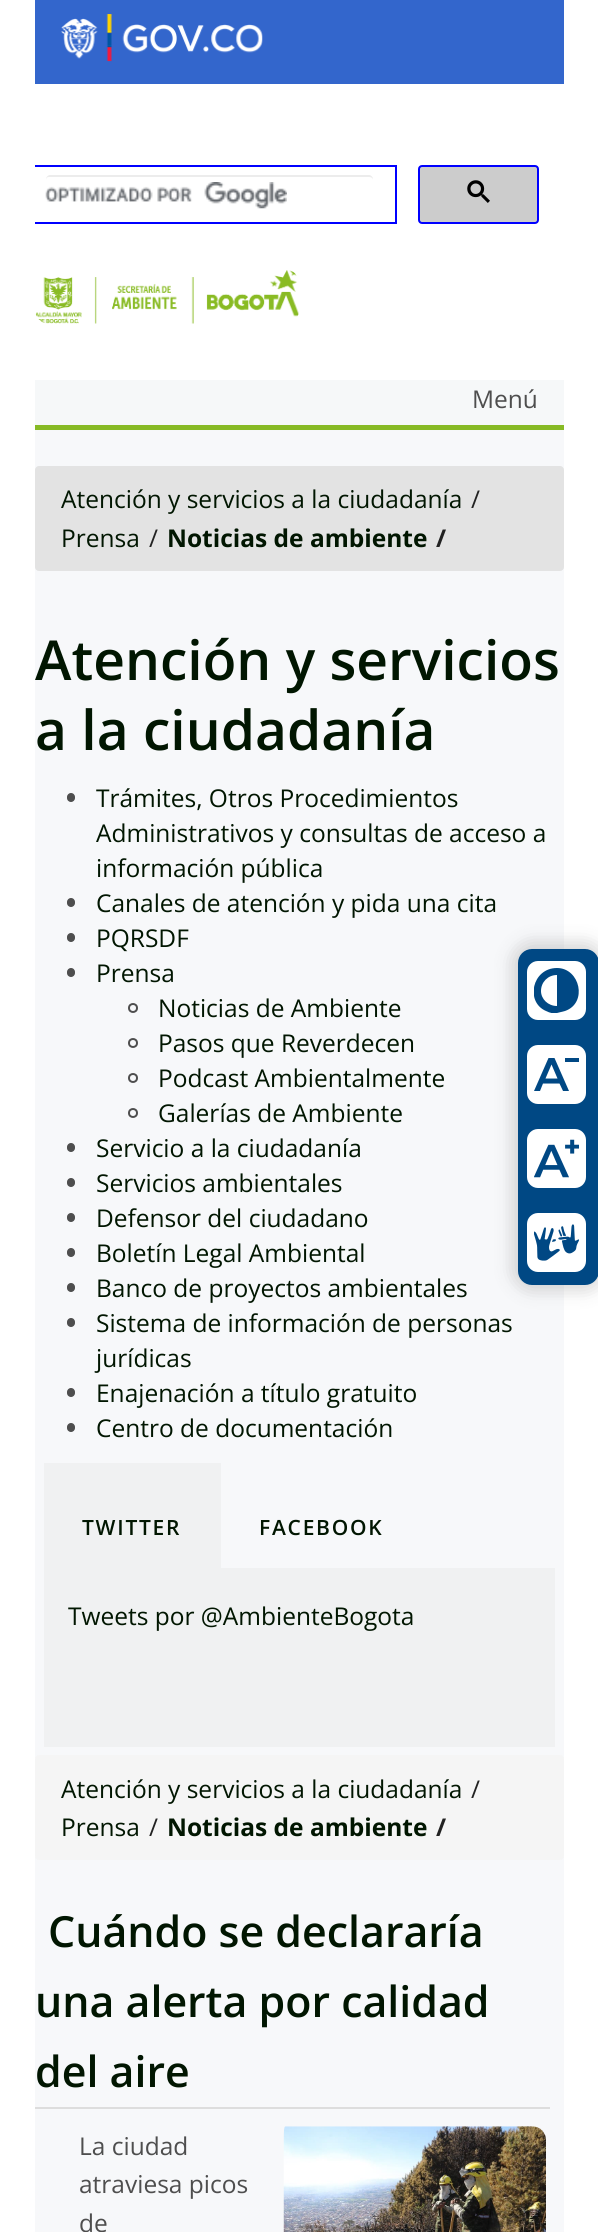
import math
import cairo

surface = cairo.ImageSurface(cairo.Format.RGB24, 598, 2232)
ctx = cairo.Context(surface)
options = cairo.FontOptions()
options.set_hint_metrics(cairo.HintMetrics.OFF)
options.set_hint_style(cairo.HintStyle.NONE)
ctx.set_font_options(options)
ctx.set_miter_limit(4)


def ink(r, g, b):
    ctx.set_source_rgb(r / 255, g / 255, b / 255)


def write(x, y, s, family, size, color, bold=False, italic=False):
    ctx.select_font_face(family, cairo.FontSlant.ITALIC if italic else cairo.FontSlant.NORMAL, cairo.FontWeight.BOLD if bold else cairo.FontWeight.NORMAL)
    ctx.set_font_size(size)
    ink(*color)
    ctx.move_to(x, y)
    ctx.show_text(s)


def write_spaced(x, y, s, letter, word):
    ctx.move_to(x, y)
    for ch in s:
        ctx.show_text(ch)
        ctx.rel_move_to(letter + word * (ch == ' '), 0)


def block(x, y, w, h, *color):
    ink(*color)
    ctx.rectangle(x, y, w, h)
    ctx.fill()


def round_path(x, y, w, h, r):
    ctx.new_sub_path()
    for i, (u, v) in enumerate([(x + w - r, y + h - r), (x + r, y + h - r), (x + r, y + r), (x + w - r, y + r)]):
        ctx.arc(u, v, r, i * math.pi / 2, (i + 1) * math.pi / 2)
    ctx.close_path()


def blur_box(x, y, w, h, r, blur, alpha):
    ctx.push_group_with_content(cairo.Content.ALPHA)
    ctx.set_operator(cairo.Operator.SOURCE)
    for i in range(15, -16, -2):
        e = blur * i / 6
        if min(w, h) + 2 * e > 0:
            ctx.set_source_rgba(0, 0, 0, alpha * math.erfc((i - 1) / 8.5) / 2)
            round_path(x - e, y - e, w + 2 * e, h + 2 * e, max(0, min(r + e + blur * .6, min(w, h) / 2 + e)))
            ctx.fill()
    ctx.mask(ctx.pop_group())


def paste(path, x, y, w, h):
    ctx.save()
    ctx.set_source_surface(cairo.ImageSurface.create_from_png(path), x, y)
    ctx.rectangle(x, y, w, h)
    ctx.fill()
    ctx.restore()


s1 = dict(family="Open Sans", size=24.5, color=(78, 78, 78))
s2 = dict(family="Open Sans", size=24.5, color=(1, 22, 1))
s3 = dict(family="Open Sans", size=24.5, color=(34, 34, 34))
s4 = dict(family="Open Sans", size=24.5, color=(1, 22, 1), bold=True)
s5 = dict(family="Open Sans", size=24.5, color=(34, 34, 34), bold=True)
s6 = dict(family="Open Sans SemiBold", size=55.1, color=(1, 22, 1))
s7 = dict(family="Open Sans SemiBold", size=42.9, color=(1, 22, 1))

ink(255, 255, 255)
ctx.paint()
block(35, 0, 529, 84, 51, 102, 204)
paste("pic1.png", 61, 14, 202, 48)
ctx.save()
ctx.rectangle(35, 84, 529, 186)
ctx.clip()
ctx.rectangle(29, 166, 367, 57)
ink(0, 0, 255)
ctx.stroke()
ctx.restore()
paste("pic2.png", 45, 182, 242, 27)
ink(236, 236, 236)
ctx.new_path()
ctx.move_to(49, 177)
ctx.line_to(369, 177)
ctx.curve_to(371, 177, 373, 178, 373, 180)
ctx.line_to(373, 179)
ctx.curve_to(373, 177, 371, 175, 369, 175)
ctx.line_to(50, 175)
ctx.curve_to(48, 175, 46, 177, 46, 179)
ctx.line_to(46, 180)
ctx.curve_to(46, 178, 47, 177, 49, 177)
ctx.close_path()
ctx.fill()
ink(204, 204, 204)
round_path(419, 166, 119, 57, 3)
ctx.fill_preserve()
ink(0, 0, 255)
ctx.stroke()
paste("pic3.png", 467, 180, 23, 23)
paste("pic4.png", 35, 270, 264, 54)
block(35, 380, 529, 51, 246, 248, 249)
block(35, 425, 529, 5, 135, 186, 37)
write(472, 408, "Menú", **s1)
block(35, 431, 529, 1801, 247, 248, 250)
ink(227, 227, 227)
round_path(35, 466, 529, 105, 4)
ctx.fill()
write(61, 508, "Atención y servicios a la ciudadanía", **s2)
write(471, 508, "/", **s3)
write(61, 547, "Prensa", **s2)
write(149, 547, "/", **s3)
write(167, 547, "Noticias de ambiente", **s4)
write(436, 547, "/", **s5)
write(35, 680, "Atención y servicios", **s6)
write(35, 750, "a la ciudadanía", **s6)
ink(78, 78, 78)
round_path(67, 793, 8, 9, 4)
ctx.fill()
write(96, 807, "Trámites, Otros Procedimientos", **s2)
write(96, 842, "Administrativos y consultas de acceso a", **s2)
write(96, 877, "información pública", **s2)
ink(78, 78, 78)
round_path(67, 898, 8, 9, 4)
ctx.fill()
write(96, 912, "Canales de atención y pida una cita", **s2)
ink(78, 78, 78)
round_path(67, 933, 8, 9, 4)
ctx.fill()
write(96, 947, "PQRSDF", **s2)
ink(78, 78, 78)
round_path(67, 968, 8, 9, 4)
ctx.fill()
write(96, 982, "Prensa", **s2)
ctx.new_path()
ctx.arc(133, 1008, 4, 0, 2 * math.pi)
ink(78, 78, 78)
ctx.stroke()
write(158, 1017, "Noticias de Ambiente", **s2)
ctx.new_path()
ctx.arc(133, 1043, 4, 0, 2 * math.pi)
ink(78, 78, 78)
ctx.stroke()
write(158, 1052, "Pasos que Reverdecen", **s2)
ctx.new_path()
ctx.arc(133, 1078, 4, 0, 2 * math.pi)
ink(78, 78, 78)
ctx.stroke()
write(158, 1087, "Podcast Ambientalmente", **s2)
ctx.new_path()
ctx.arc(133, 1113, 4, 0, 2 * math.pi)
ink(78, 78, 78)
ctx.stroke()
write(158, 1122, "Galerías de Ambiente", **s2)
ink(78, 78, 78)
round_path(67, 1143, 8, 9, 4)
ctx.fill()
write(96, 1157, "Servicio a la ciudadanía", **s2)
ink(78, 78, 78)
round_path(67, 1178, 8, 9, 4)
ctx.fill()
write(96, 1192, "Servicios ambientales", **s2)
ink(78, 78, 78)
round_path(67, 1213, 8, 9, 4)
ctx.fill()
write(96, 1227, "Defensor del ciudadano", **s2)
ink(78, 78, 78)
round_path(67, 1248, 8, 9, 4)
ctx.fill()
write(96, 1262, "Boletín Legal Ambiental", **s2)
ink(78, 78, 78)
round_path(67, 1283, 8, 9, 4)
ctx.fill()
write(96, 1297, "Banco de proyectos ambientales", **s2)
ink(78, 78, 78)
round_path(67, 1318, 8, 9, 4)
ctx.fill()
write(96, 1332, "Sistema de información de personas", **s2)
write(96, 1367, "jurídicas", **s2)
ink(78, 78, 78)
round_path(67, 1388, 8, 9, 4)
ctx.fill()
write(96, 1402, "Enajenación a título gratuito", **s2)
ink(78, 78, 78)
round_path(67, 1423, 8, 9, 4)
ctx.fill()
write(96, 1437, "Centro de documentación", **s2)
block(44, 1463, 177, 105, 240, 241, 242)
ctx.select_font_face("Open Sans SemiBold")
ctx.set_font_size(21)
ink(1, 22, 1)
write_spaced(82, 1535, "TWITTER", 1.75, 0)
write_spaced(259, 1535, "FACEBOOK", 1.75, 0)
block(44, 1568, 511, 179, 240, 241, 242)
write(68, 1625, "Tweets por @AmbienteBogota", **s2)
ink(245, 245, 245)
round_path(35, 1755, 529, 105, 4)
ctx.fill()
write(61, 1798, "Atención y servicios a la ciudadanía", **s2)
write(471, 1798, "/", **s3)
write(61, 1836, "Prensa", **s2)
write(149, 1836, "/", **s3)
write(167, 1836, "Noticias de ambiente", **s4)
write(436, 1836, "/", **s5)
block(35, 2107, 515, 2, 221, 221, 221)
write(48, 1947, "Cuándo se declararía", **s7)
write(35, 2017, "una alerta por calidad", **s7)
write(35, 2087, "del aire", **s7)
write(79, 2155, "La ciudad", **s1)
paste("pic5.png", 283, 2126, 263, 106)
write(79, 2193, "atraviesa picos", **s1)
write(79, 2232, "de", **s1)
ink(0, 0, 0)
blur_box(513, 943, 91, 347, 19, 9, 0.17)
ink(0, 72, 132)
round_path(518, 949, 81, 336, 14)
ctx.fill()
ink(255, 255, 255)
round_path(527, 961, 59, 59, 11)
ctx.fill()
ctx.save()
ctx.rectangle(534, 968, 45, 45)
ctx.clip()
ink(0, 72, 132)
ctx.set_fill_rule(cairo.FillRule.EVEN_ODD)
ctx.new_path()
ctx.move_to(557, 968)
ctx.curve_to(580, 968, 588, 1003, 565, 1011)
ctx.line_to(557, 1013)
ctx.curve_to(554, 1014, 550, 1013, 546, 1011)
ctx.curve_to(525, 1002, 532, 968, 557, 968)
ctx.close_path()
ctx.move_to(541, 991)
ctx.curve_to(541, 999, 548, 1006, 557, 1006)
ctx.line_to(557, 975)
ctx.curve_to(548, 975, 541, 982, 541, 991)
ctx.close_path()
ctx.fill()
ctx.restore()
round_path(527, 1045, 59, 59, 11)
ctx.fill()
block(565, 1058, 14, 4, 0, 72, 132)
ctx.new_path()
ctx.move_to(559.5, 1083.5)
ctx.line_to(543, 1083.5)
ctx.line_to(540, 1091)
ctx.line_to(534, 1091)
ctx.line_to(548.5, 1058)
ctx.line_to(554.5, 1058)
ctx.line_to(569, 1091)
ctx.line_to(563, 1091)
ctx.close_path()
ctx.move_to(557.5, 1078.5)
ctx.line_to(551.5, 1064.5)
ctx.line_to(545.5, 1078.5)
ctx.close_path()
ctx.fill()
ink(255, 255, 255)
round_path(527, 1129, 59, 59, 11)
ctx.fill()
paste("pic6.png", 534, 1139, 45, 39)
round_path(527, 1213, 59, 59, 11)
ctx.fill()
paste("pic7.png", 534, 1224, 45, 37)
surface.write_to_png("screenshot.png")
